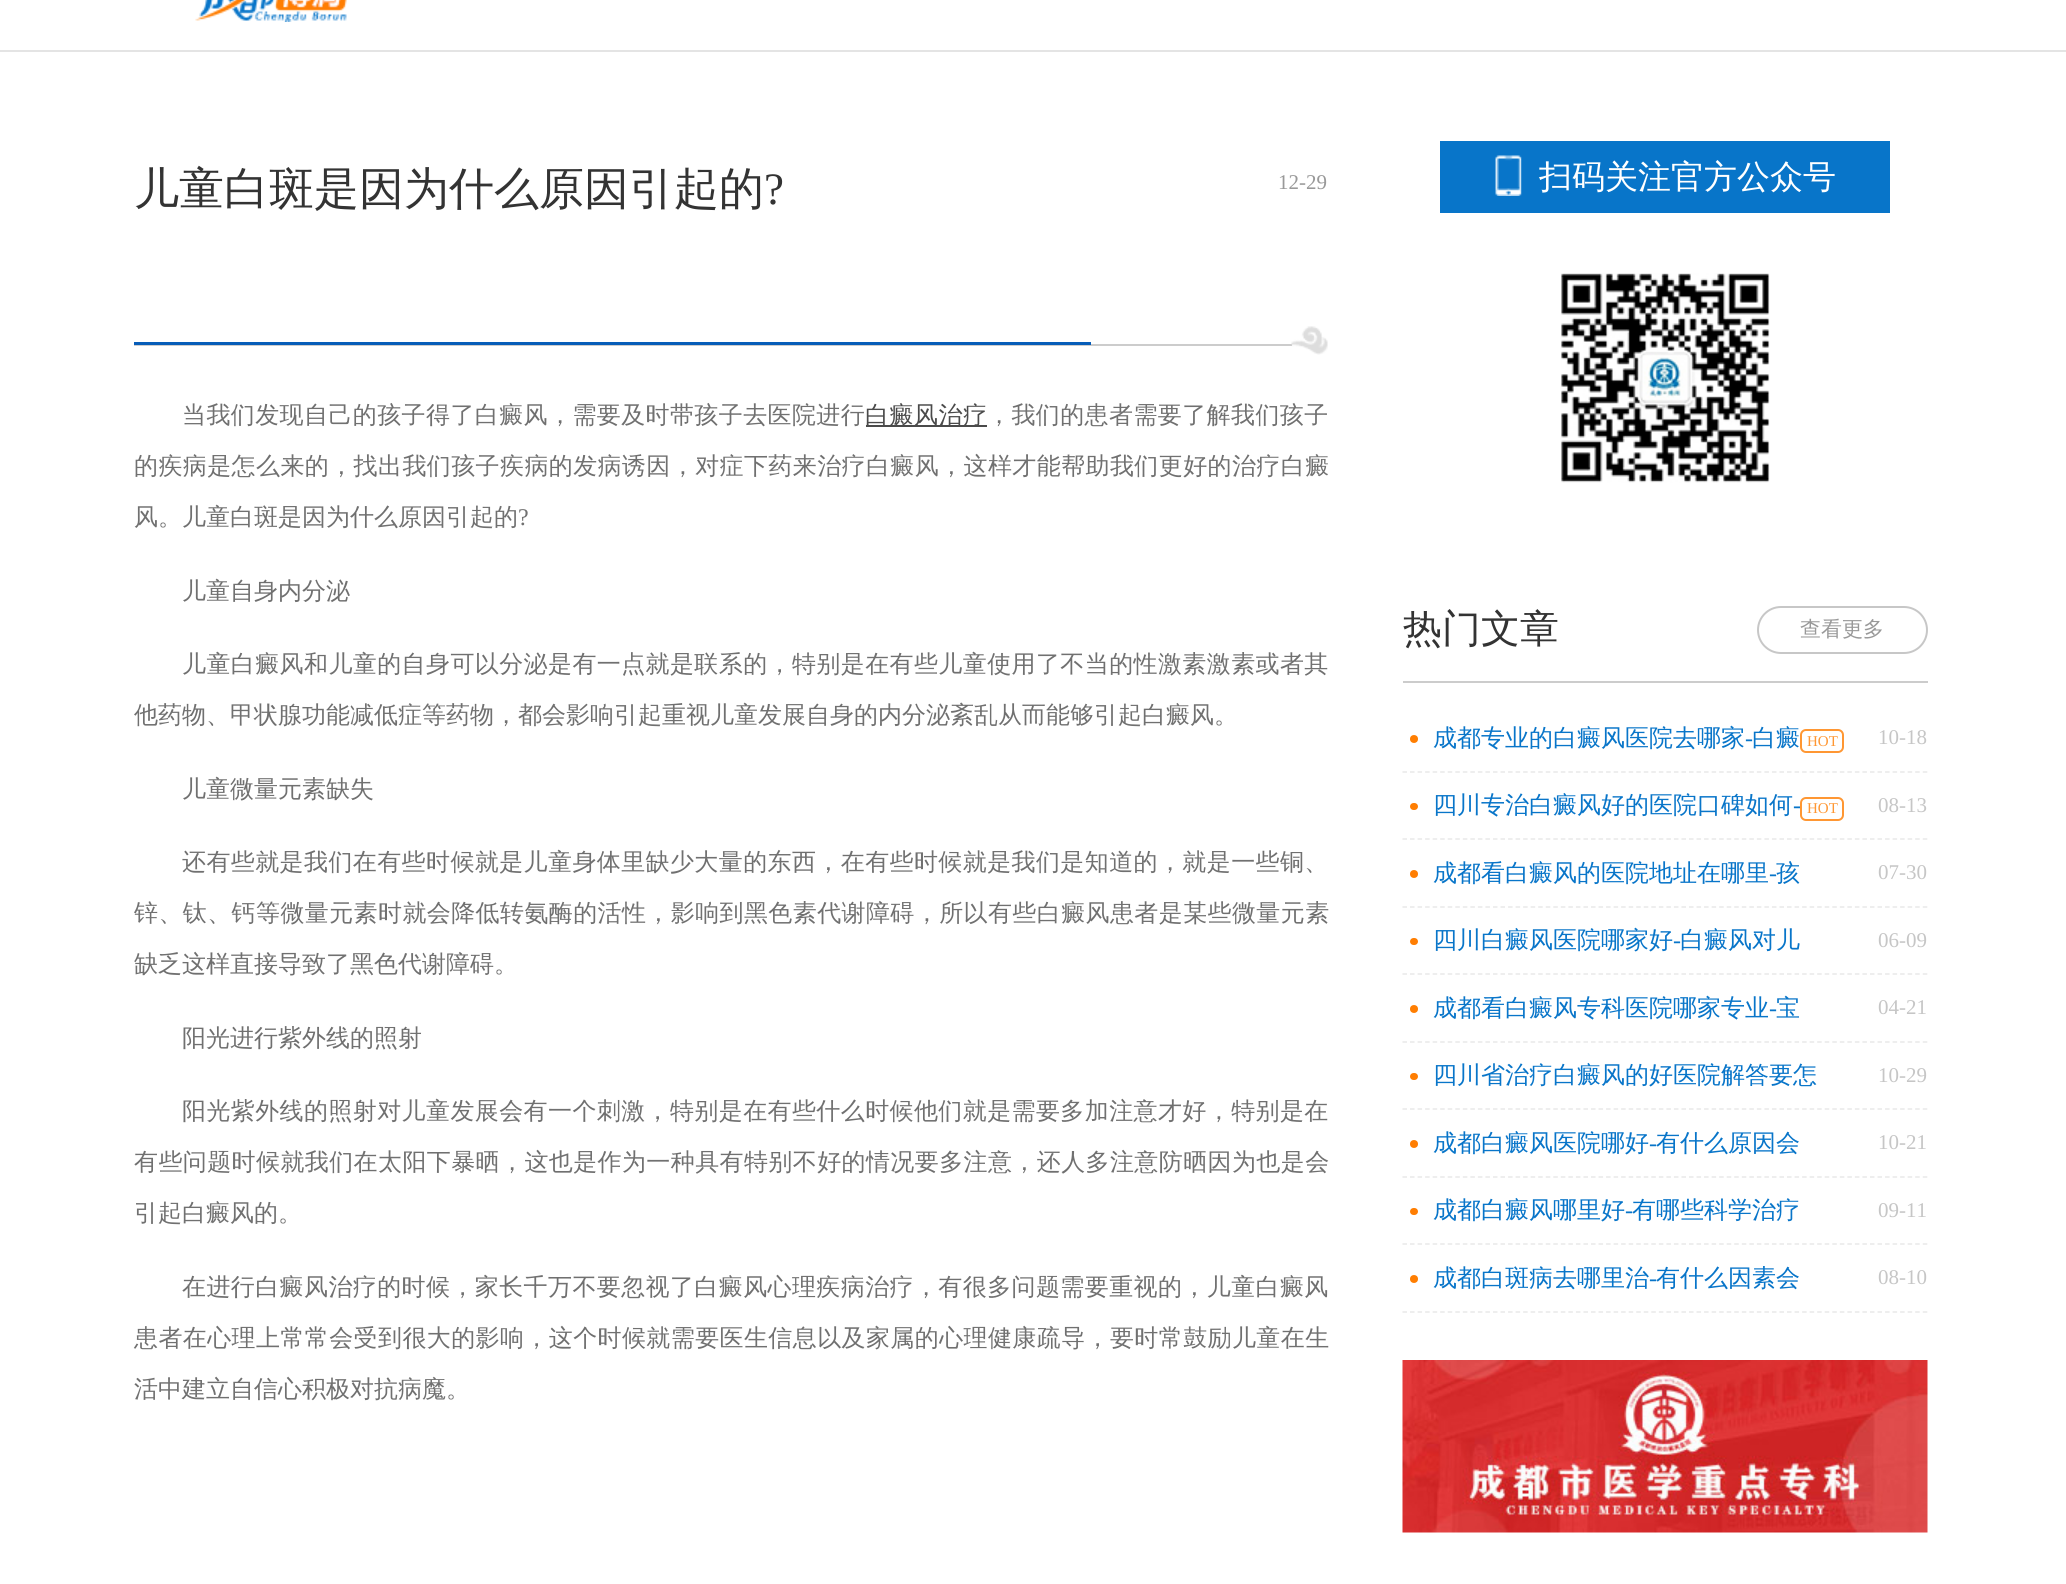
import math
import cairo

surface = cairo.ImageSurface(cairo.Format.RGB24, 2066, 1584)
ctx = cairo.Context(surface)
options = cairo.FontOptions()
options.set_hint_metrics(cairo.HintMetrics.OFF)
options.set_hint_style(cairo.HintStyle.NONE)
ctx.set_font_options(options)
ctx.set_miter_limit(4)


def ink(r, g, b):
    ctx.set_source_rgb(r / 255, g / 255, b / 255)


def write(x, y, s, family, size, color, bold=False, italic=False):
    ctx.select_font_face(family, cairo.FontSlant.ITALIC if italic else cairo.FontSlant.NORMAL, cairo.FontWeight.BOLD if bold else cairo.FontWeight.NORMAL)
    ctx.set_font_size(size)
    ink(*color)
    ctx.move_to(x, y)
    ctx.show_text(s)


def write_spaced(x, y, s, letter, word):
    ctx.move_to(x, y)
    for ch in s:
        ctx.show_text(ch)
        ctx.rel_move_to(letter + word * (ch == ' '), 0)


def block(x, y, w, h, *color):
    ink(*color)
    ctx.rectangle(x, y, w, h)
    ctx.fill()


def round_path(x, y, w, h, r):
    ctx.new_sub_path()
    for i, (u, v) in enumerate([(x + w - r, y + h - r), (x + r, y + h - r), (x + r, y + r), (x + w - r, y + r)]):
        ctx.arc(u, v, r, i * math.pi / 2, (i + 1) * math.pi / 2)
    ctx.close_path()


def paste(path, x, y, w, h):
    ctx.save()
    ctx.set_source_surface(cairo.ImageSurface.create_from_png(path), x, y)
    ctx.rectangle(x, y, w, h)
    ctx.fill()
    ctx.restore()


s1 = dict(family="WenQuanYi Zen Hei Medium", size=45, color=(51, 51, 51))
s2 = dict(family="Liberation Serif", size=45, color=(51, 51, 51))
s3 = dict(family="Liberation Serif", size=21, color=(153, 153, 153))
s4 = dict(family="WenQuanYi Zen Hei Medium", size=24, color=(112, 112, 112))
s5 = dict(family="Liberation Serif", size=24, color=(112, 112, 112))
s6 = dict(family="WenQuanYi Zen Hei Medium", size=33, color=(255, 255, 255))
s7 = dict(family="WenQuanYi Zen Hei Medium", size=39, color=(51, 51, 51))
s8 = dict(family="WenQuanYi Zen Hei Medium", size=21, color=(153, 153, 153))
s9 = dict(family="WenQuanYi Zen Hei Medium", size=24, color=(8, 117, 201))
s10 = dict(family="Liberation Serif", size=24, color=(8, 117, 201))
s11 = dict(family="Liberation Serif", size=15, color=(255, 151, 51))
s12 = dict(family="Liberation Serif", size=21, color=(198, 198, 198))

ink(255, 255, 255)
ctx.paint()
block(0, 50, 2066, 2, 228, 228, 228)
paste("pic1.png", 195, 0, 152, 22)
block(134, 344, 1158, 2, 204, 204, 204)
block(134, 342, 957, 3, 7, 93, 184)
write(134, 204, "儿童白斑是因为什么原因引起的", **s1)
write(764, 204, "?", **s2)
write(1278, 189, "12-29", **s3)
paste("pic2.png", 1291, 326, 37, 29)
ctx.select_font_face("WenQuanYi Zen Hei Medium")
ctx.set_font_size(24)
ink(112, 112, 112)
write_spaced(182, 423, "当我们发现自己的孩子得了白癜风，需要及时带孩子去医院进行", 0.4, 0)
block(866, 425, 121, 2, 74, 74, 74)
write_spaced(865, 423, "白癜风治疗", 0.5, 0)
ink(112, 112, 112)
write_spaced(987, 423, "，我们的患者需要了解我们孩子", 0.4, 0)
write_spaced(134, 474, "的疾病是怎么来的，找出我们孩子疾病的发病诱因，对症下药来治疗白癜风，这样才能帮助我们更好的治疗白癜", 0.4, 0)
write(134, 525, "风。儿童白斑是因为什么原因引起的", **s4)
write(518, 525, "?", **s5)
write(182, 599, "儿童自身内分泌", **s4)
write_spaced(182, 672, "儿童白癜风和儿童的自身可以分泌是有一点就是联系的，特别是在有些儿童使用了不当的性激素激素或者其", 0.4, 0)
write(134, 723, "他药物、甲状腺功能减低症等药物，都会影响引起重视儿童发展自身的内分泌紊乱从而能够引起白癜风。", **s4)
write(182, 797, "儿童微量元素缺失", **s4)
write_spaced(182, 870, "还有些就是我们在有些时候就是儿童身体里缺少大量的东西，在有些时候就是我们是知道的，就是一些铜、", 0.4, 0)
write_spaced(134, 921, "锌、钛、钙等微量元素时就会降低转氨酶的活性，影响到黑色素代谢障碍，所以有些白癜风患者是某些微量元素", 0.4, 0)
write(134, 972, "缺乏这样直接导致了黑色代谢障碍。", **s4)
write(182, 1046, "阳光进行紫外线的照射", **s4)
write_spaced(182, 1119, "阳光紫外线的照射对儿童发展会有一个刺激，特别是在有些什么时候他们就是需要多加注意才好，特别是在", 0.4, 0)
write_spaced(134, 1170, "有些问题时候就我们在太阳下暴晒，这也是作为一种具有特别不好的情况要多注意，还人多注意防晒因为也是会", 0.4, 0)
write(134, 1221, "引起白癜风的。", **s4)
write_spaced(182, 1295, "在进行白癜风治疗的时候，家长千万不要忽视了白癜风心理疾病治疗，有很多问题需要重视的，儿童白癜风", 0.4, 0)
write_spaced(134, 1346, "患者在心理上常常会受到很大的影响，这个时候就需要医生信息以及家属的心理健康疏导，要时常鼓励儿童在生", 0.4, 0)
write(134, 1397, "活中建立自信心积极对抗病魔。", **s4)
block(1440, 141, 450, 72, 8, 117, 201)
paste("pic3.png", 1495, 155, 27, 41)
write(1539, 188, "扫码关注官方公众号", **s6)
paste("pic4.png", 1561, 273, 209, 210)
block(1403, 681, 525, 2, 204, 204, 204)
write(1403, 642, "热门文章", **s7)
round_path(1758, 607, 169, 46, 23)
ink(199, 199, 199)
ctx.stroke()
write(1800, 636, "查看更多", **s8)
ctx.new_path()
ctx.move_to(1402.5, 772)
ctx.line_to(1927.5, 772)
ink(232, 232, 232)
ctx.set_line_width(1.5)
ctx.set_dash([4.5, 3.04])
ctx.stroke()
ink(255, 126, 2)
ctx.arc(1414, 739, 4, 0, 2 * math.pi)
ctx.fill()
write(1433, 746, "成都专业的白癜风医院去哪家", **s9)
write(1745, 746, "-", **s10)
write(1752, 746, "白癜", **s9)
round_path(1801, 730, 42, 22, 5)
ink(255, 151, 51)
ctx.set_line_width(2)
ctx.set_dash([])
ctx.stroke()
write(1807, 746, "HOT", **s11)
write(1878, 744, "10-18", **s12)
ctx.new_path()
ctx.move_to(1402.5, 839)
ctx.line_to(1927.5, 839)
ink(232, 232, 232)
ctx.set_line_width(1.5)
ctx.set_dash([4.5, 3.04])
ctx.stroke()
ink(255, 126, 2)
round_path(1410, 803, 8, 7, 3.5)
ctx.fill()
write(1433, 813, "四川专治白癜风好的医院口碑如何", **s9)
write(1793, 813, "-", **s10)
round_path(1801, 798, 42, 22, 5)
ink(255, 151, 51)
ctx.set_line_width(2)
ctx.set_dash([])
ctx.stroke()
write(1807, 813, "HOT", **s11)
write(1878, 812, "08-13", **s12)
ctx.new_path()
ctx.move_to(1402.5, 907)
ctx.line_to(1927.5, 907)
ink(232, 232, 232)
ctx.set_line_width(1.5)
ctx.set_dash([4.5, 3.04])
ctx.stroke()
ink(255, 126, 2)
ctx.arc(1414, 874, 4, 0, 2 * math.pi)
ctx.fill()
write(1433, 881, "成都看白癜风的医院地址在哪里", **s9)
write(1769, 881, "-", **s10)
write(1776, 881, "孩", **s9)
write(1878, 879, "07-30", **s12)
ctx.new_path()
ctx.move_to(1402.5, 974)
ctx.line_to(1927.5, 974)
ink(232, 232, 232)
ctx.stroke()
ink(255, 126, 2)
round_path(1410, 938, 8, 7, 3.5)
ctx.fill()
write(1433, 948, "四川白癜风医院哪家好", **s9)
write(1673, 948, "-", **s10)
write(1680, 948, "白癜风对儿", **s9)
write(1878, 947, "06-09", **s12)
ctx.new_path()
ctx.move_to(1402.5, 1042)
ctx.line_to(1927.5, 1042)
ink(232, 232, 232)
ctx.stroke()
ink(255, 126, 2)
ctx.arc(1414, 1009, 4, 0, 2 * math.pi)
ctx.fill()
write(1433, 1016, "成都看白癜风专科医院哪家专业", **s9)
write(1769, 1016, "-", **s10)
write(1776, 1016, "宝", **s9)
write(1878, 1014, "04-21", **s12)
ctx.new_path()
ctx.move_to(1402.5, 1109)
ctx.line_to(1927.5, 1109)
ink(232, 232, 232)
ctx.stroke()
ink(255, 126, 2)
round_path(1410, 1073, 8, 7, 3.5)
ctx.fill()
write(1433, 1083, "四川省治疗白癜风的好医院解答要怎", **s9)
write(1878, 1082, "10-29", **s12)
ctx.new_path()
ctx.move_to(1402.5, 1177)
ctx.line_to(1927.5, 1177)
ink(232, 232, 232)
ctx.stroke()
ink(255, 126, 2)
ctx.arc(1414, 1144, 4, 0, 2 * math.pi)
ctx.fill()
write(1433, 1151, "成都白癜风医院哪好", **s9)
write(1649, 1151, "-", **s10)
write(1656, 1151, "有什么原因会", **s9)
write(1878, 1149, "10-21", **s12)
ctx.new_path()
ctx.move_to(1402.5, 1244)
ctx.line_to(1927.5, 1244)
ink(232, 232, 232)
ctx.stroke()
ink(255, 126, 2)
round_path(1410, 1208, 8, 7, 3.5)
ctx.fill()
write(1433, 1218, "成都白癜风哪里好", **s9)
write(1625, 1218, "-", **s10)
write(1632, 1218, "有哪些科学治疗", **s9)
write(1878, 1217, "09-11", **s12)
ctx.new_path()
ctx.move_to(1402.5, 1312)
ctx.line_to(1927.5, 1312)
ink(232, 232, 232)
ctx.stroke()
ink(255, 126, 2)
ctx.arc(1414, 1279, 4, 0, 2 * math.pi)
ctx.fill()
write(1433, 1286, "成都白斑病去哪里治", **s9)
write(1649, 1286, "-", **s10)
write(1656, 1286, "有什么因素会", **s9)
write(1878, 1284, "08-10", **s12)
paste("pic5.png", 1402, 1360, 526, 173)
surface.write_to_png("screenshot.png")
